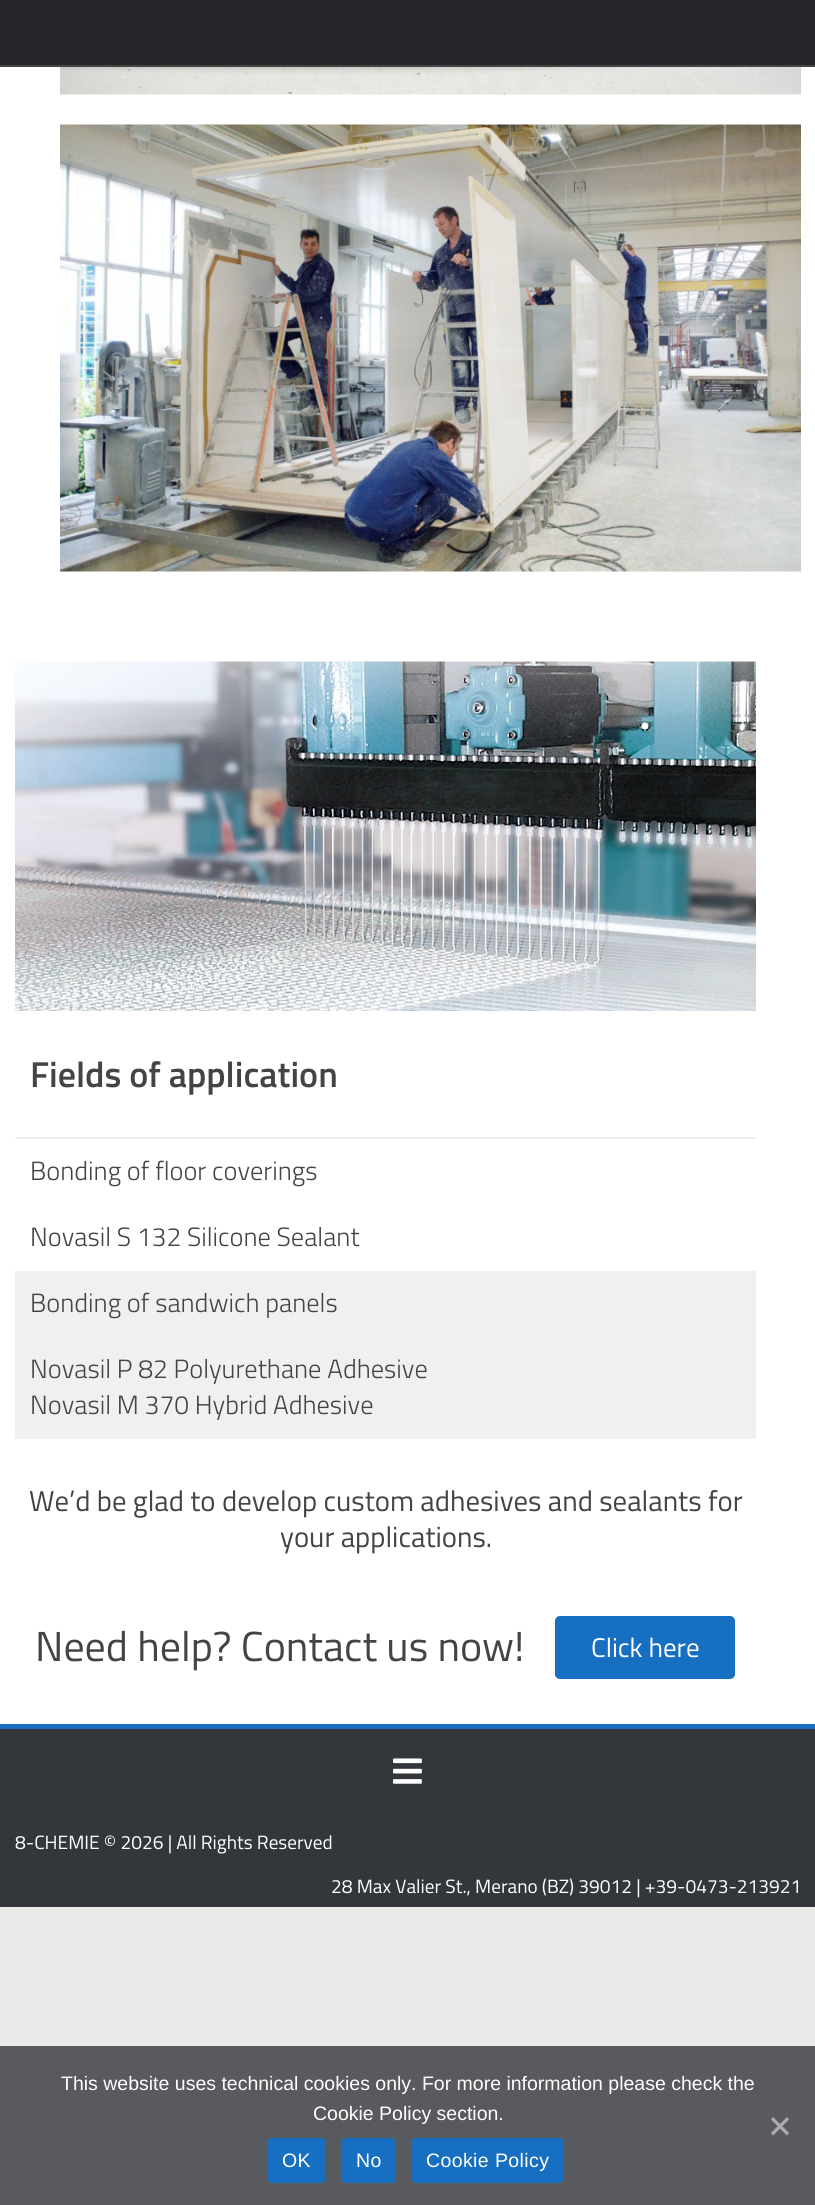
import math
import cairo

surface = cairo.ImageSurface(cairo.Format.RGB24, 815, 2205)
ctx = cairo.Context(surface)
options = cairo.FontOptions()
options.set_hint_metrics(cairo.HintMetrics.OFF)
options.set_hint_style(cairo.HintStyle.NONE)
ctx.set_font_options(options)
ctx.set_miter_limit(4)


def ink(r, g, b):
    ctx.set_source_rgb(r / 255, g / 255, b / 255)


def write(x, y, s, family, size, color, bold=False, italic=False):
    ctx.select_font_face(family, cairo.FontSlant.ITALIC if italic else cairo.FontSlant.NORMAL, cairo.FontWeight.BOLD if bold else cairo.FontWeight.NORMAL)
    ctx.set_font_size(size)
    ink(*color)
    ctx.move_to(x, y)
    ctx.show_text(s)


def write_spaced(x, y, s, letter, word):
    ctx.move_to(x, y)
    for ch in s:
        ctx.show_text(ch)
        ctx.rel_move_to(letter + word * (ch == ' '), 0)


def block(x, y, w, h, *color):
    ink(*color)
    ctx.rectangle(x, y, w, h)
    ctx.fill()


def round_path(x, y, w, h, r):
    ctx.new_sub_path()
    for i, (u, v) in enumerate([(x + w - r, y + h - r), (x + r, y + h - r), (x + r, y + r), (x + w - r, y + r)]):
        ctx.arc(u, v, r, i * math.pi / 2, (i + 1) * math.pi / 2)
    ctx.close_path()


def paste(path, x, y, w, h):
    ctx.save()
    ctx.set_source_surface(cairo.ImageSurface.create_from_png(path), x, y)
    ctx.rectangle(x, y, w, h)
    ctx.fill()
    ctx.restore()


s1 = dict(family="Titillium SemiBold", size=36, color=(68, 68, 68))
s2 = dict(family="Titillium Light", size=26.4, color=(68, 68, 68))
s3 = dict(family="Titillium", size=28.8, color=(68, 68, 68))
s4 = dict(family="Titillium", size=42, color=(68, 68, 68))
s5 = dict(family="Titillium", size=27, color=(255, 255, 255))
s6 = dict(family="Titillium", size=19.2, color=(255, 255, 255))
s7 = dict(family="Liberation Sans", size=19.5, color=(255, 255, 255))

ink(234, 234, 234)
ctx.paint()
block(0, 0, 815, 65, 38, 39, 43)
block(0, 65, 815, 2, 68, 68, 68)
block(0, 67, 815, 1657, 255, 255, 255)
paste("pic1.png", 60, 67, 741, 28)
paste("pic2.png", 60, 124, 741, 448)
paste("pic3.png", 15, 661, 741, 350)
write(30, 1087, "Fields of application", **s1)
block(15, 1137, 741, 2, 240, 240, 240)
write(30, 1180, "Bonding of floor coverings", **s2)
write(30, 1246, "Novasil S 132 Silicone Sealant", **s2)
block(15, 1271, 741, 168, 240, 240, 240)
write(30, 1312, "Bonding of sandwich panels", **s2)
write(30, 1378, "Novasil P 82 Polyurethane Adhesive", **s2)
write(30, 1414, "Novasil M 370 Hybrid Adhesive", **s2)
write(29, 1511, "We’d be glad to develop custom adhesives and sealants for", **s3)
write(280, 1547, "your applications.", **s3)
write(35, 1661, "Need help? Contact us now!", **s4)
ink(23, 111, 193)
round_path(555, 1616, 180, 63, 5)
ctx.fill()
write(591, 1657, "Click here", **s5)
block(0, 1729, 815, 178, 51, 54, 59)
block(0, 1724, 815, 5, 23, 111, 193)
paste("pic4.png", 393, 1758, 29, 26)
write(15, 1849, "8-CHEMIE © 2026 | All Rights Reserved", **s6)
write(331, 1893, "28 Max Valier St., Merano (BZ) 39012 | +39-0473-213921", **s6)
block(0, 2046, 815, 159, 88, 90, 94)
write(61, 2090, "This website uses technical cookies only. For more information please check the", **s7)
write(313, 2120, "Cookie Policy section.", **s7)
ink(172, 173, 175)
ctx.new_path()
ctx.move_to(787, 2117)
ctx.line_to(789, 2119.5)
ctx.line_to(773, 2135.5)
ctx.line_to(771, 2133)
ctx.close_path()
ctx.fill()
ctx.new_path()
ctx.move_to(771, 2119.5)
ctx.line_to(773, 2117)
ctx.line_to(789, 2133)
ctx.line_to(787, 2135.5)
ctx.close_path()
ctx.fill()
ink(23, 111, 193)
round_path(267, 2138, 59, 45, 5)
ctx.fill()
ink(255, 255, 255)
write_spaced(282, 2167, "OK", 0.4, 0)
ink(23, 111, 193)
round_path(341, 2138, 55, 45, 5)
ctx.fill()
ink(255, 255, 255)
write_spaced(356, 2167, "No", 0.4, 0)
ink(23, 111, 193)
round_path(411, 2138, 153, 45, 5)
ctx.fill()
ink(255, 255, 255)
write_spaced(426, 2167, "Cookie Policy", 0.4, 0)
surface.write_to_png("screenshot.png")
